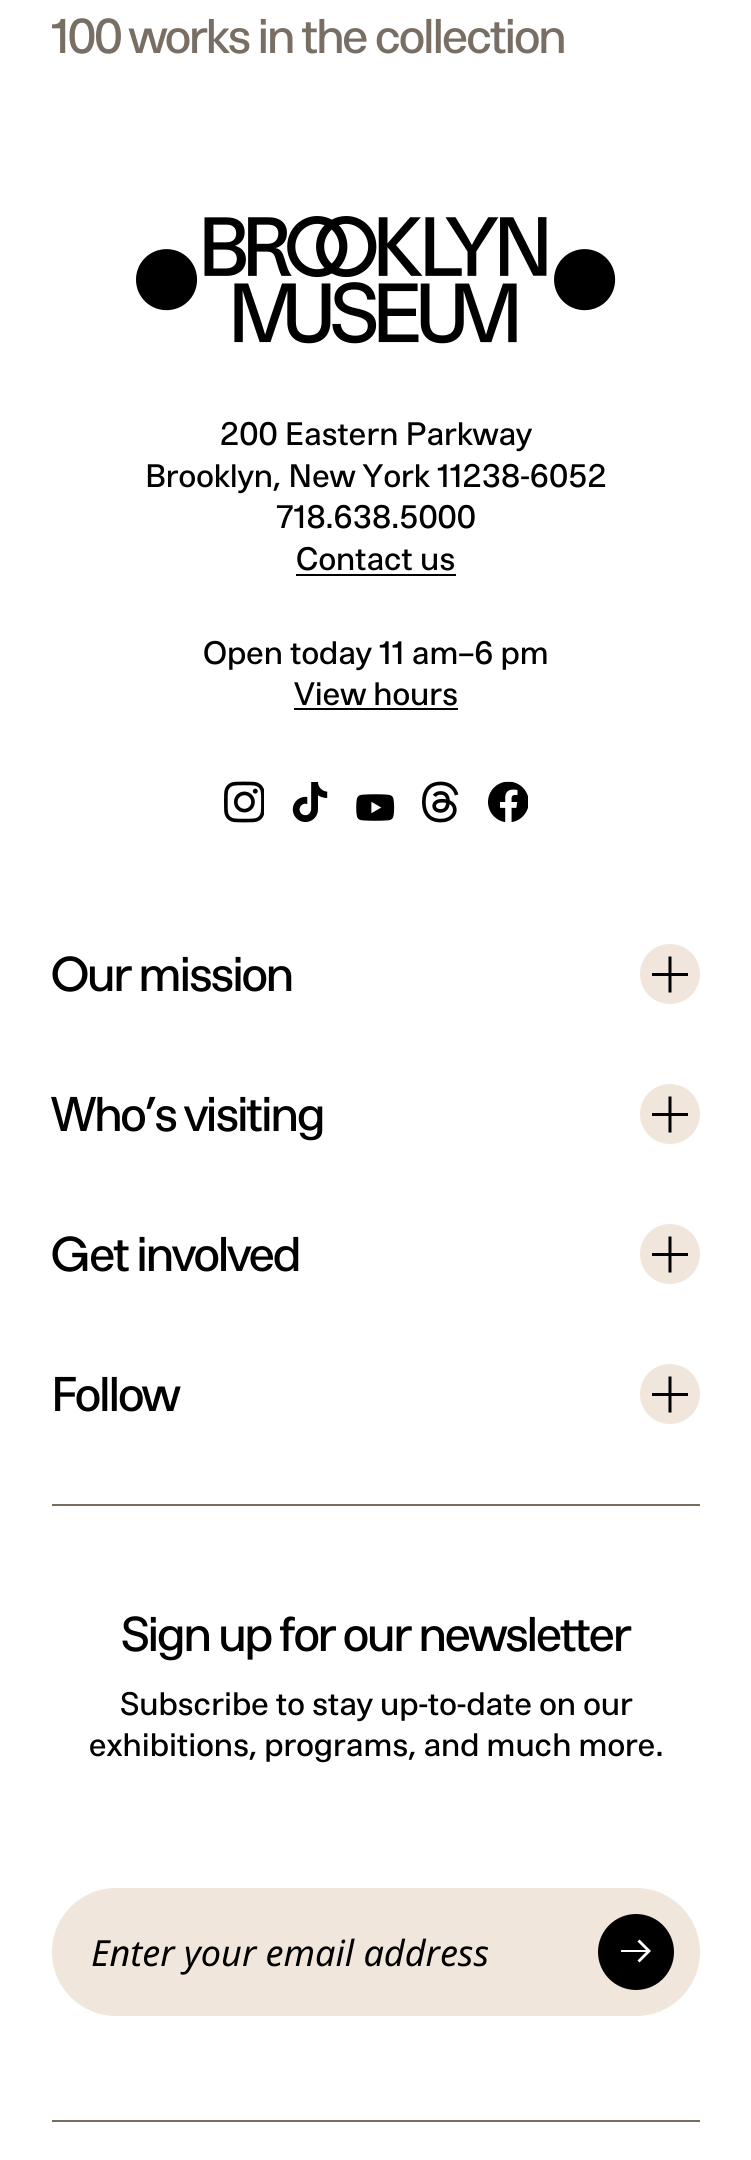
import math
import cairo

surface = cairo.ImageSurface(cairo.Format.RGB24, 751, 2160)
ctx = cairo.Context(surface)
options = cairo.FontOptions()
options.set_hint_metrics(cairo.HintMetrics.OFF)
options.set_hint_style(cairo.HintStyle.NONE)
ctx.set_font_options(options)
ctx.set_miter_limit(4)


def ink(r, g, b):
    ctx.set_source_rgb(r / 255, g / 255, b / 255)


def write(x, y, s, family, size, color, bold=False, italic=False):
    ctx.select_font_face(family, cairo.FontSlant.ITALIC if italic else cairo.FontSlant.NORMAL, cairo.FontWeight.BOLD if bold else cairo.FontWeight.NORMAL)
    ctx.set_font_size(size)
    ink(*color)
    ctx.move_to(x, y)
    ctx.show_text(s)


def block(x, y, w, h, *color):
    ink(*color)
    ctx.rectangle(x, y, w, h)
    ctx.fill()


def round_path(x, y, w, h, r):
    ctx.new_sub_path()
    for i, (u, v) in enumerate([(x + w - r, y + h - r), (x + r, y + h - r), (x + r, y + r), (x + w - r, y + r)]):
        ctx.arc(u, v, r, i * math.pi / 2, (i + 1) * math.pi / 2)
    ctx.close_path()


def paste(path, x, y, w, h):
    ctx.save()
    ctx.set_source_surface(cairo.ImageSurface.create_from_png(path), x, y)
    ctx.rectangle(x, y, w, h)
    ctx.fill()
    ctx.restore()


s1 = dict(family="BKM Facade", size=48, color=(120, 110, 100))
s2 = dict(family="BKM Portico", size=32, color=(0, 0, 0))
s3 = dict(family="BKM Facade", size=48, color=(0, 0, 0))
s4 = dict(family="Noto Sans", size=36, color=(0, 0, 0), italic=True)

ink(255, 255, 255)
ctx.paint()
write(52, 53, "100 works in the collection", **s1)
block(52, 1504, 648, 2, 120, 110, 100)
paste("pic1.png", 136, 216, 480, 128)
write(220, 445, "200 Eastern Parkway", **s2)
write(145, 487, "Brooklyn, New York 11238-6052", **s2)
write(276, 528, "718.638.5000", **s2)
write(296, 570, "Contact us", **s2)
block(296, 574, 160, 2, 0, 0, 0)
write(203, 664, "Open today 11 am–6 pm", **s2)
write(294, 705, "View hours", **s2)
block(294, 708, 164, 2, 0, 0, 0)
paste("pic2.png", 224, 781, 40, 42)
paste("pic3.png", 292, 782, 36, 40)
paste("pic4.png", 356, 794, 39, 27)
paste("pic5.png", 422, 781, 37, 42)
paste("pic6.png", 488, 781, 40, 41)
write(52, 991, "Our mission", **s3)
ink(240, 230, 220)
ctx.new_path()
ctx.arc(670, 974, 30, 0, 2 * math.pi)
ctx.fill()
ink(0, 0, 0)
ctx.new_path()
ctx.move_to(668.5, 956.5)
ctx.line_to(668.5, 973)
ctx.line_to(652, 973)
ctx.line_to(652, 976)
ctx.line_to(668.5, 976)
ctx.line_to(668.5, 992.5)
ctx.line_to(671.5, 992.5)
ctx.line_to(671.5, 976)
ctx.line_to(688, 976)
ctx.line_to(688, 973)
ctx.line_to(671.5, 973)
ctx.line_to(671.5, 956.5)
ctx.close_path()
ctx.fill()
write(52, 1131, "Who’s visiting", **s3)
ink(240, 230, 220)
ctx.new_path()
ctx.arc(670, 1114, 30, 0, 2 * math.pi)
ctx.fill()
ink(0, 0, 0)
ctx.new_path()
ctx.move_to(668.5, 1096.5)
ctx.line_to(668.5, 1113)
ctx.line_to(652, 1113)
ctx.line_to(652, 1116)
ctx.line_to(668.5, 1116)
ctx.line_to(668.5, 1132.5)
ctx.line_to(671.5, 1132.5)
ctx.line_to(671.5, 1116)
ctx.line_to(688, 1116)
ctx.line_to(688, 1113)
ctx.line_to(671.5, 1113)
ctx.line_to(671.5, 1096.5)
ctx.close_path()
ctx.fill()
write(52, 1271, "Get involved", **s3)
ink(240, 230, 220)
ctx.new_path()
ctx.arc(670, 1254, 30, 0, 2 * math.pi)
ctx.fill()
ink(0, 0, 0)
ctx.new_path()
ctx.move_to(668.5, 1236.5)
ctx.line_to(668.5, 1253)
ctx.line_to(652, 1253)
ctx.line_to(652, 1256)
ctx.line_to(668.5, 1256)
ctx.line_to(668.5, 1272.5)
ctx.line_to(671.5, 1272.5)
ctx.line_to(671.5, 1256)
ctx.line_to(688, 1256)
ctx.line_to(688, 1253)
ctx.line_to(671.5, 1253)
ctx.line_to(671.5, 1236.5)
ctx.close_path()
ctx.fill()
write(52, 1411, "Follow", **s3)
ink(240, 230, 220)
ctx.new_path()
ctx.arc(670, 1394, 30, 0, 2 * math.pi)
ctx.fill()
ink(0, 0, 0)
ctx.new_path()
ctx.move_to(668.5, 1376.5)
ctx.line_to(668.5, 1393)
ctx.line_to(652, 1393)
ctx.line_to(652, 1396)
ctx.line_to(668.5, 1396)
ctx.line_to(668.5, 1412.5)
ctx.line_to(671.5, 1412.5)
ctx.line_to(671.5, 1396)
ctx.line_to(688, 1396)
ctx.line_to(688, 1393)
ctx.line_to(671.5, 1393)
ctx.line_to(671.5, 1376.5)
ctx.close_path()
ctx.fill()
block(52, 2120, 648, 2, 120, 110, 100)
write(122, 1651, "Sign up for our newsletter", **s3)
write(120, 1715, "Subscribe to stay up-to-date on our", **s2)
write(89, 1756, "exhibitions, programs, and much more.", **s2)
ink(240, 230, 220)
round_path(52, 1888, 648, 128, 64)
ctx.fill()
write(91, 1966, "Enter your email address", **s4)
ctx.new_path()
ctx.move_to(636, 1914)
ctx.curve_to(615, 1914, 598, 1931, 598, 1952)
ctx.curve_to(598, 1973, 615, 1990, 636, 1990)
ctx.curve_to(657, 1990, 674, 1973, 674, 1952)
ctx.curve_to(674, 1931, 657, 1914, 636, 1914)
ctx.close_path()
ctx.fill()
ink(255, 255, 255)
ctx.new_path()
ctx.move_to(639.5, 1939.5)
ctx.line_to(651, 1951)
ctx.line_to(639.5, 1962.5)
ctx.line_to(637.5, 1960.5)
ctx.line_to(646, 1952)
ctx.line_to(621, 1952)
ctx.line_to(621, 1950)
ctx.line_to(646, 1950)
ctx.line_to(637.5, 1941.5)
ctx.close_path()
ctx.fill()
surface.write_to_png("screenshot.png")
